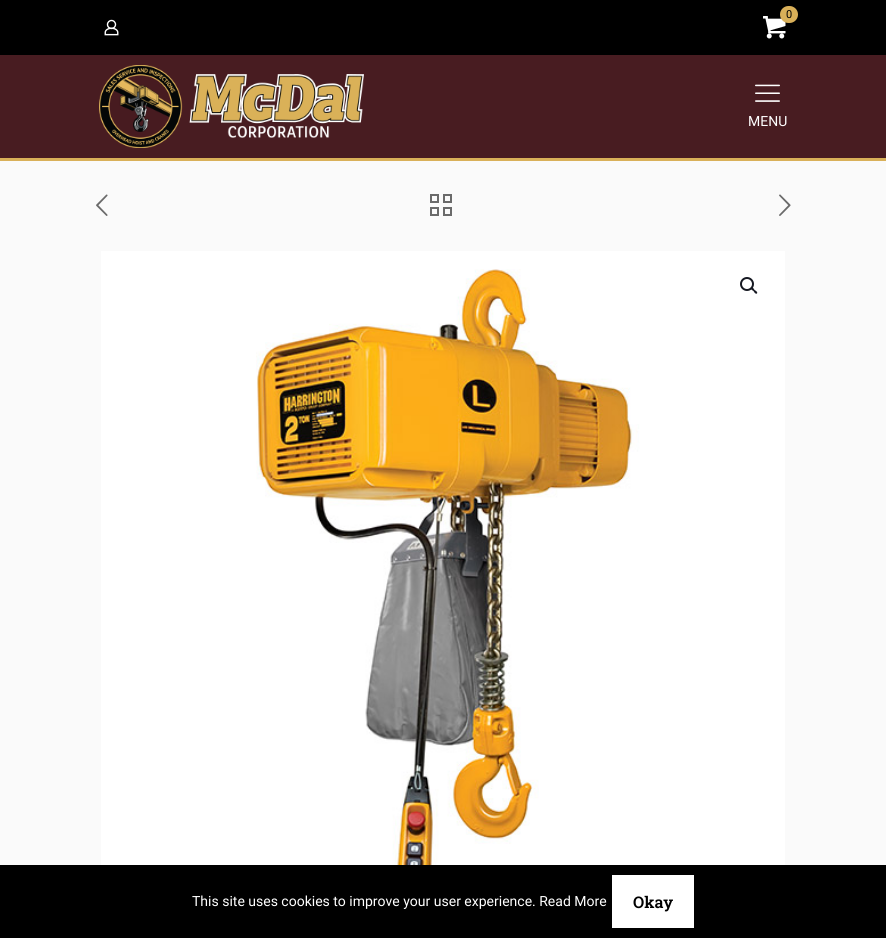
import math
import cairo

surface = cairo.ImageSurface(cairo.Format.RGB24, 886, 938)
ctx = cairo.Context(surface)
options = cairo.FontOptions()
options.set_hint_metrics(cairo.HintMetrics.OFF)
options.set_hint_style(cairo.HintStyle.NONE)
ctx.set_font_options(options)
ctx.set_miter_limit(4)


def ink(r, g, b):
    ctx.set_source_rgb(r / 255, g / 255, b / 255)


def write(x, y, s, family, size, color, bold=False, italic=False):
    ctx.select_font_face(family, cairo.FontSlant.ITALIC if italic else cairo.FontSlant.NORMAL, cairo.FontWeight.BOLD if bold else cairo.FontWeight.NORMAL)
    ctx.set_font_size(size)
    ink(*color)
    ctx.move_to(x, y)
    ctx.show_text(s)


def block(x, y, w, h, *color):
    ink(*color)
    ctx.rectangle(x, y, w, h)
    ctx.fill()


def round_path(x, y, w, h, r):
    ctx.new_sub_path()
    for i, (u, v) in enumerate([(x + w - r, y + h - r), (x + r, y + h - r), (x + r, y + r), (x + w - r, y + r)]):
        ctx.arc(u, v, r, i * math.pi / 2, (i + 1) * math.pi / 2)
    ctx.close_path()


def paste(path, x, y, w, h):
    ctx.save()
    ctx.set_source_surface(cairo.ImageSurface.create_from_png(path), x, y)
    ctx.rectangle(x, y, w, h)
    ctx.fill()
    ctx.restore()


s1 = dict(family="Roboto", size=11, color=(0, 0, 0))
s2 = dict(family="Roboto", size=14, color=(255, 255, 255))
s3 = dict(family="Roboto Slab SemiBold", size=16, color=(0, 0, 0))

ink(250, 250, 250)
ctx.paint()
block(0, 0, 886, 55, 0, 0, 0)
paste("pic1.png", 763, 16, 23, 23)
ink(217, 176, 89)
round_path(780, 6, 18, 17, 8.5)
ctx.fill()
write(786, 18, "0", **s1)
paste("pic2.png", 104, 19, 15, 17)
block(0, 55, 886, 103, 72, 28, 33)
block(0, 158, 886, 3, 217, 176, 89)
paste("pic3.png", 99, 65, 265, 83)
paste("pic4.png", 755, 84, 25, 18)
write(748, 126, "MENU", **s2)
paste("pic5.png", 96, 194, 12, 22)
paste("pic6.png", 430, 194, 22, 22)
paste("pic7.png", 779, 194, 12, 22)
paste("pic8.png", 101, 251, 684, 614)
ctx.arc(747, 284, 6, 0, 2 * math.pi)
ink(22, 25, 34)
ctx.stroke()
ctx.new_path()
ctx.move_to(751, 287.5)
ctx.curve_to(752.5, 286.5, 754, 289, 754.5, 290)
ctx.curve_to(755.5, 290.5, 758, 292, 757, 293.5)
ctx.curve_to(755.5, 294.5, 754, 292, 753.5, 291)
ctx.curve_to(752.5, 290.5, 750, 289, 751, 287.5)
ctx.close_path()
ctx.fill()
block(0, 865, 886, 73, 0, 0, 0)
write(192, 906, "This site uses cookies to improve your user experience. Read More", **s2)
block(612, 875, 82, 53, 255, 255, 255)
write(633, 908, "Okay", **s3)
surface.write_to_png("screenshot.png")
